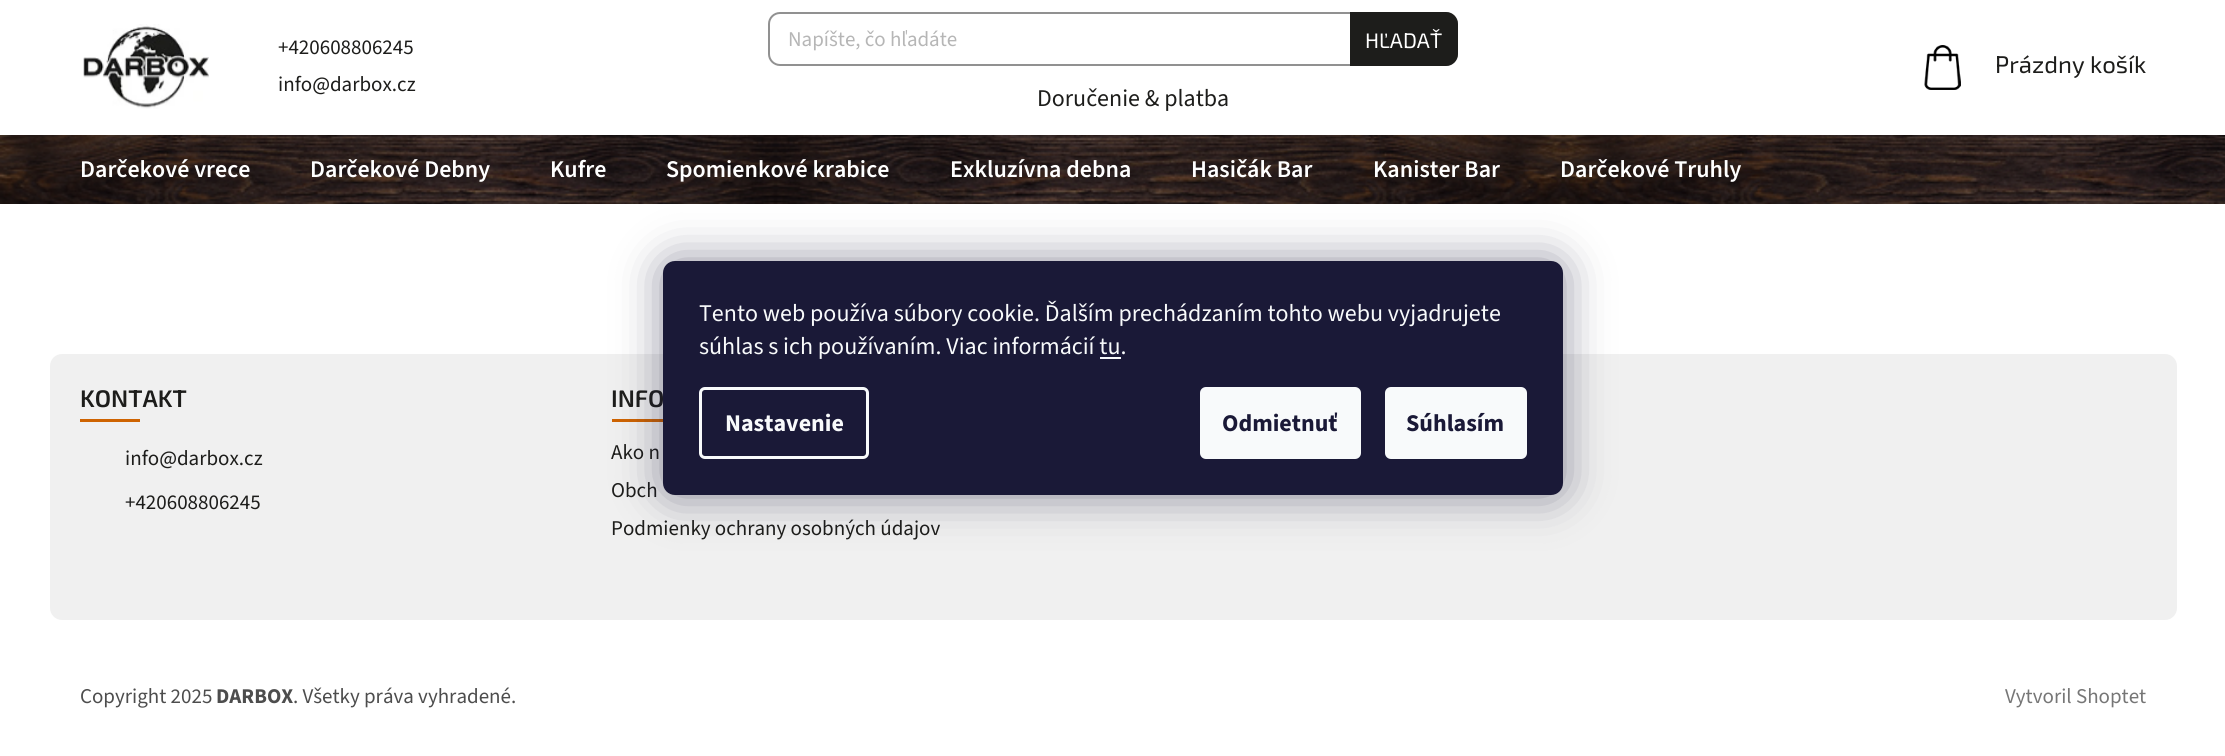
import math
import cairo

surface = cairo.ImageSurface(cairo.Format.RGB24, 2225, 756)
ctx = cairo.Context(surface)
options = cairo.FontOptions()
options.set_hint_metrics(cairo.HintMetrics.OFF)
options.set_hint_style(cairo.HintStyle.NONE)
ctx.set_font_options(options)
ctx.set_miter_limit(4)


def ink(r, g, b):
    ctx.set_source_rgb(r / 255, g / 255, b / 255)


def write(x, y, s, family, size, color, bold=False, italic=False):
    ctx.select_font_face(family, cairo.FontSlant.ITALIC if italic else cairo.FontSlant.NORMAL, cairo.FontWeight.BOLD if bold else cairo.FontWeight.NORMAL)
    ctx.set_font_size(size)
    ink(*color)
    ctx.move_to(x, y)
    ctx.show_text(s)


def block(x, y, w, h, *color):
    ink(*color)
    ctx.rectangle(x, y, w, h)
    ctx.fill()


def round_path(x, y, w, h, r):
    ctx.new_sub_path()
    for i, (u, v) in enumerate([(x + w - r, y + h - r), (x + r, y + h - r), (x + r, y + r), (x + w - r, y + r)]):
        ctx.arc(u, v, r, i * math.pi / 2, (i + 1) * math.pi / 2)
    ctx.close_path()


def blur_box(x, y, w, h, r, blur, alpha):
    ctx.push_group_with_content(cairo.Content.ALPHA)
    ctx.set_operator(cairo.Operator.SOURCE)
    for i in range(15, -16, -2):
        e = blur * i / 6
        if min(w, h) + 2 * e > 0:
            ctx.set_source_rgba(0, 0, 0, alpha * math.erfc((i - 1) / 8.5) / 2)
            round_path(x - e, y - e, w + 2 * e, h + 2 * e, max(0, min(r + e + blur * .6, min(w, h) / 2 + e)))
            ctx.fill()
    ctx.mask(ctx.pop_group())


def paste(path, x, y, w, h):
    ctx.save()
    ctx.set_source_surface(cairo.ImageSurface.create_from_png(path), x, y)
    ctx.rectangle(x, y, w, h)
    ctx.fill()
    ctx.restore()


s1 = dict(family="Source Sans 3", size=21, color=(29, 29, 27))
s2 = dict(family="Source Sans 3", size=21, color=(182, 182, 182))
s3 = dict(family="Exo 2", size=21, color=(255, 255, 255))
s4 = dict(family="Source Sans 3", size=24, color=(29, 29, 27))
s5 = dict(family="Exo 2", size=24, color=(29, 29, 27))
s6 = dict(family="Source Sans 3 SemiBold", size=24, color=(255, 255, 255))
s7 = dict(family="Exo 2 SemiBold", size=24, color=(29, 29, 27))
s8 = dict(family="Source Sans 3", size=21, color=(77, 77, 77))
s9 = dict(family="Source Sans 3", size=21, color=(77, 77, 77), bold=True)
s10 = dict(family="Source Sans 3", size=21, color=(118, 118, 118))
s11 = dict(family="Source Sans 3", size=24, color=(248, 250, 251))
s12 = dict(family="Source Sans 3", size=24, color=(248, 250, 251), bold=True)
s13 = dict(family="Source Sans 3", size=24, color=(26, 25, 55), bold=True)

ink(255, 255, 255)
ctx.paint()
paste("pic1.png", 83, 24, 126, 85)
write(278, 54, "+420608806245", **s1)
write(278, 91, "info@darbox.cz", **s1)
round_path(769, 13, 688, 52, 11)
ink(145, 145, 145)
ctx.stroke()
write(788, 46, "Napíšte, čo hľadáte", **s2)
ink(29, 29, 27)
ctx.new_path()
ctx.move_to(1351, 13)
ctx.line_to(1446, 13)
ctx.curve_to(1452, 13, 1457, 18, 1457, 24)
ctx.line_to(1457, 54)
ctx.curve_to(1457, 60, 1452, 65, 1446, 65)
ctx.line_to(1351, 65)
ctx.close_path()
ctx.fill_preserve()
ctx.stroke()
write(1365, 48, "HĽADAŤ", **s3)
write(1037, 106, "Doručenie & platba", **s4)
paste("pic2.png", 1924, 45, 37, 45)
write(1995, 73, "Prázdny košík", **s5)
paste("pic3.png", 0, 135, 2225, 69)
write(80, 177, "Darčekové vrece", **s6)
write(310, 177, "Darčekové Debny", **s6)
write(550, 177, "Kufre", **s6)
write(666, 177, "Spomienkové krabice", **s6)
write(950, 177, "Exkluzívna debna", **s6)
write(1191, 177, "Hasičák Bar", **s6)
write(1373, 177, "Kanister Bar", **s6)
write(1560, 177, "Darčekové Truhly", **s6)
ink(240, 240, 240)
round_path(50, 354, 2127, 266, 12)
ctx.fill()
write(80, 407, "KONTAKT", **s7)
block(80, 419, 60, 3, 206, 99, 1)
write(125, 465, "info@darbox.cz", **s1)
write(125, 509, "+420608806245", **s1)
write(611, 407, "INFO", **s7)
block(612, 419, 51, 3, 206, 99, 1)
write(611, 459, "Ako n", **s1)
write(611, 497, "Obch", **s1)
write(611, 535, "Podmienky ochrany osobných údajov", **s1)
write(80, 703, "Copyright 2025", **s8)
write(216, 703, "DARBOX", **s9)
write(293, 703, ". Všetky práva vyhradené.", **s8)
write(2005, 703, "Vytvoril Shoptet", **s10)
ink(27, 25, 57)
blur_box(663, 261, 900, 234, 12, 22.5, 0.5)
ink(26, 25, 55)
round_path(663, 261, 900, 234, 12)
ctx.fill()
write(699, 321, "Tento web používa súbory cookie. Ďalším prechádzaním tohto webu vyjadrujete", **s11)
write(699, 354, "súhlas s ich používaním. Viac informácií tu.", **s11)
block(1100, 357, 21, 2, 248, 250, 251)
round_path(700.5, 388.5, 167, 69, 4.5)
ctx.set_line_width(3)
ctx.stroke()
write(725, 431, "Nastavenie", **s12)
round_path(1200, 387, 161, 72, 6)
ctx.fill()
write(1222, 431, "Odmietnuť", **s13)
ink(248, 250, 251)
round_path(1385, 387, 142, 72, 6)
ctx.fill()
write(1406, 431, "Súhlasím", **s13)
surface.write_to_png("screenshot.png")
